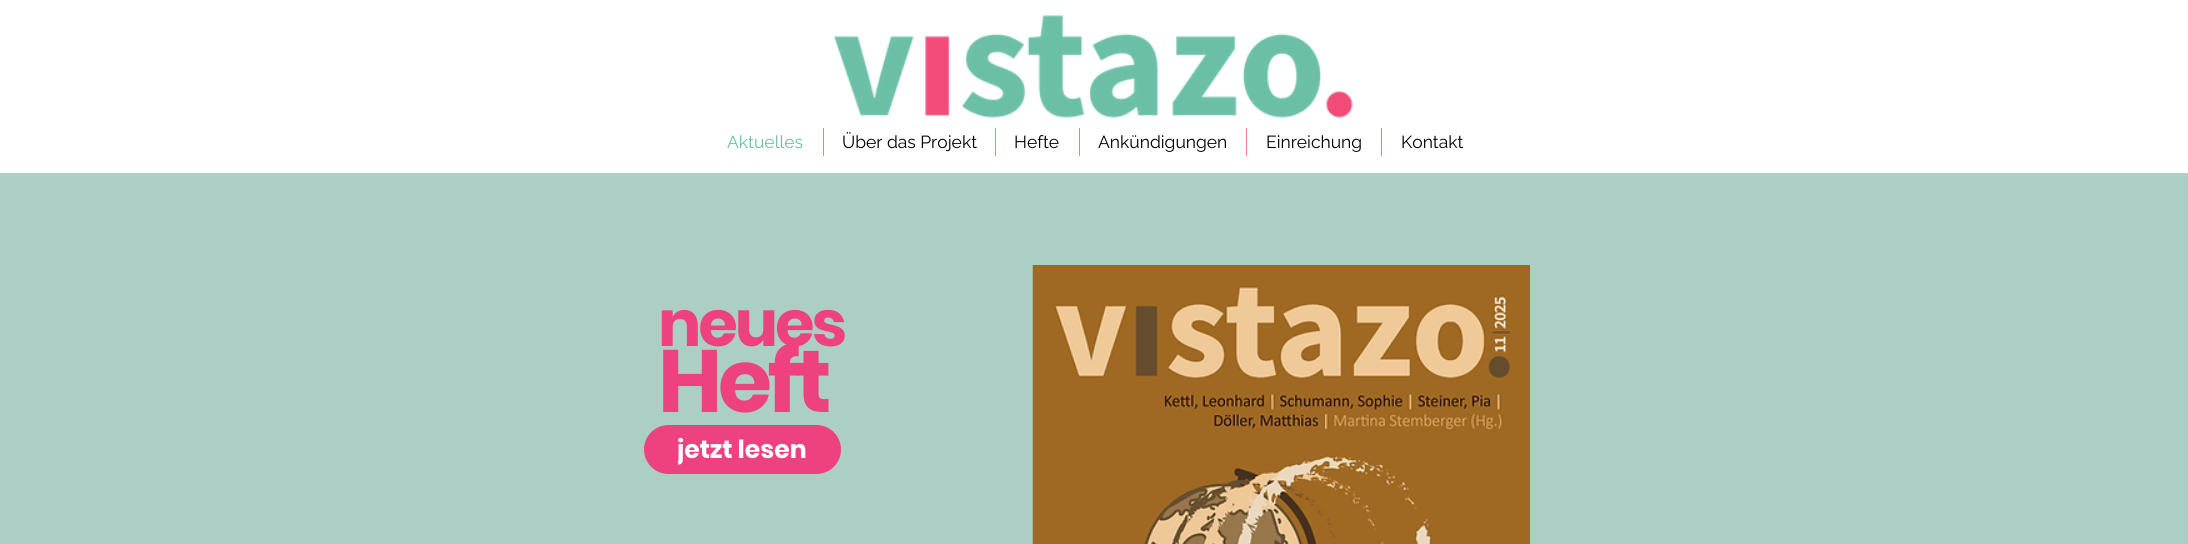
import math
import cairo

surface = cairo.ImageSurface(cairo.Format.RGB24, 2188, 544)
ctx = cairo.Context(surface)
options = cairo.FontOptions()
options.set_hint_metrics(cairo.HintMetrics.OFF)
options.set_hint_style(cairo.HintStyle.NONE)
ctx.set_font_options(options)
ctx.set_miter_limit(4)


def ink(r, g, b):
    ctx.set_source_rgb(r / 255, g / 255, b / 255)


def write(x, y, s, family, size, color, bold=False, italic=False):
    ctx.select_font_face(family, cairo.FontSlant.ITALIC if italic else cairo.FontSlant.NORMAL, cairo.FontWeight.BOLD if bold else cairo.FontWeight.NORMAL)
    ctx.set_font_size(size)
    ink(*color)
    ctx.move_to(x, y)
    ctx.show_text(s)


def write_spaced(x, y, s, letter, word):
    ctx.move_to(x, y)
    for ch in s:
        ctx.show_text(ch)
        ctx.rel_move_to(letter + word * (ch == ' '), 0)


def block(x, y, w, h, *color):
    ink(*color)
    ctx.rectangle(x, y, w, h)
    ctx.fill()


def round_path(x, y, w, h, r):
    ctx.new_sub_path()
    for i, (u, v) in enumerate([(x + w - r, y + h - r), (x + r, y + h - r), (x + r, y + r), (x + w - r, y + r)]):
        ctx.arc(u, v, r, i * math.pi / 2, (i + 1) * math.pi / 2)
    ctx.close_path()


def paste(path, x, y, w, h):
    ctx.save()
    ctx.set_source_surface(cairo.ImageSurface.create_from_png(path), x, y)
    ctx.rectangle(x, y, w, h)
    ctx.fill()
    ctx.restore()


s1 = dict(family="Raleway", size=17.5, color=(107, 191, 167))
s2 = dict(family="Raleway", size=17.5, color=(0, 0, 0))
s3 = dict(family="Poppins", size=25, color=(255, 255, 255), bold=True)

ink(255, 255, 255)
ctx.paint()
paste("pic1.png", 833, 14, 520, 104)
write(727, 148, "Aktuelles", **s1)
block(823, 128, 1, 28, 242, 126, 136)
write(842, 148, "Über das Projekt", **s2)
block(995, 128, 1, 28, 242, 126, 136)
write(1014, 148, "Hefte", **s2)
block(1079, 128, 1, 28, 242, 126, 136)
write(1098, 148, "Ankündigungen", **s2)
block(1246, 128, 1, 28, 242, 126, 136)
write(1266, 148, "Einreichung", **s2)
block(1381, 128, 1, 28, 242, 126, 136)
write(1401, 148, "Kontakt", **s2)
block(0, 173, 2188, 371, 171, 207, 197)
ctx.select_font_face("Poppins", cairo.FontSlant.NORMAL, cairo.FontWeight.BOLD)
ctx.set_font_size(64)
ink(238, 66, 128)
write_spaced(658, 346, "neues", -3, 0)
ctx.set_font_size(88)
write_spaced(658, 412, "Heft", -4.5, 0)
paste("pic2.png", 1032, 265, 498, 279)
round_path(644, 425, 197, 49, 24.5)
ctx.fill()
ctx.save()
ctx.rectangle(678, 431, 128, 38)
ctx.clip()
write(677, 458, "jetzt lesen", **s3)
ctx.restore()
surface.write_to_png("screenshot.png")
